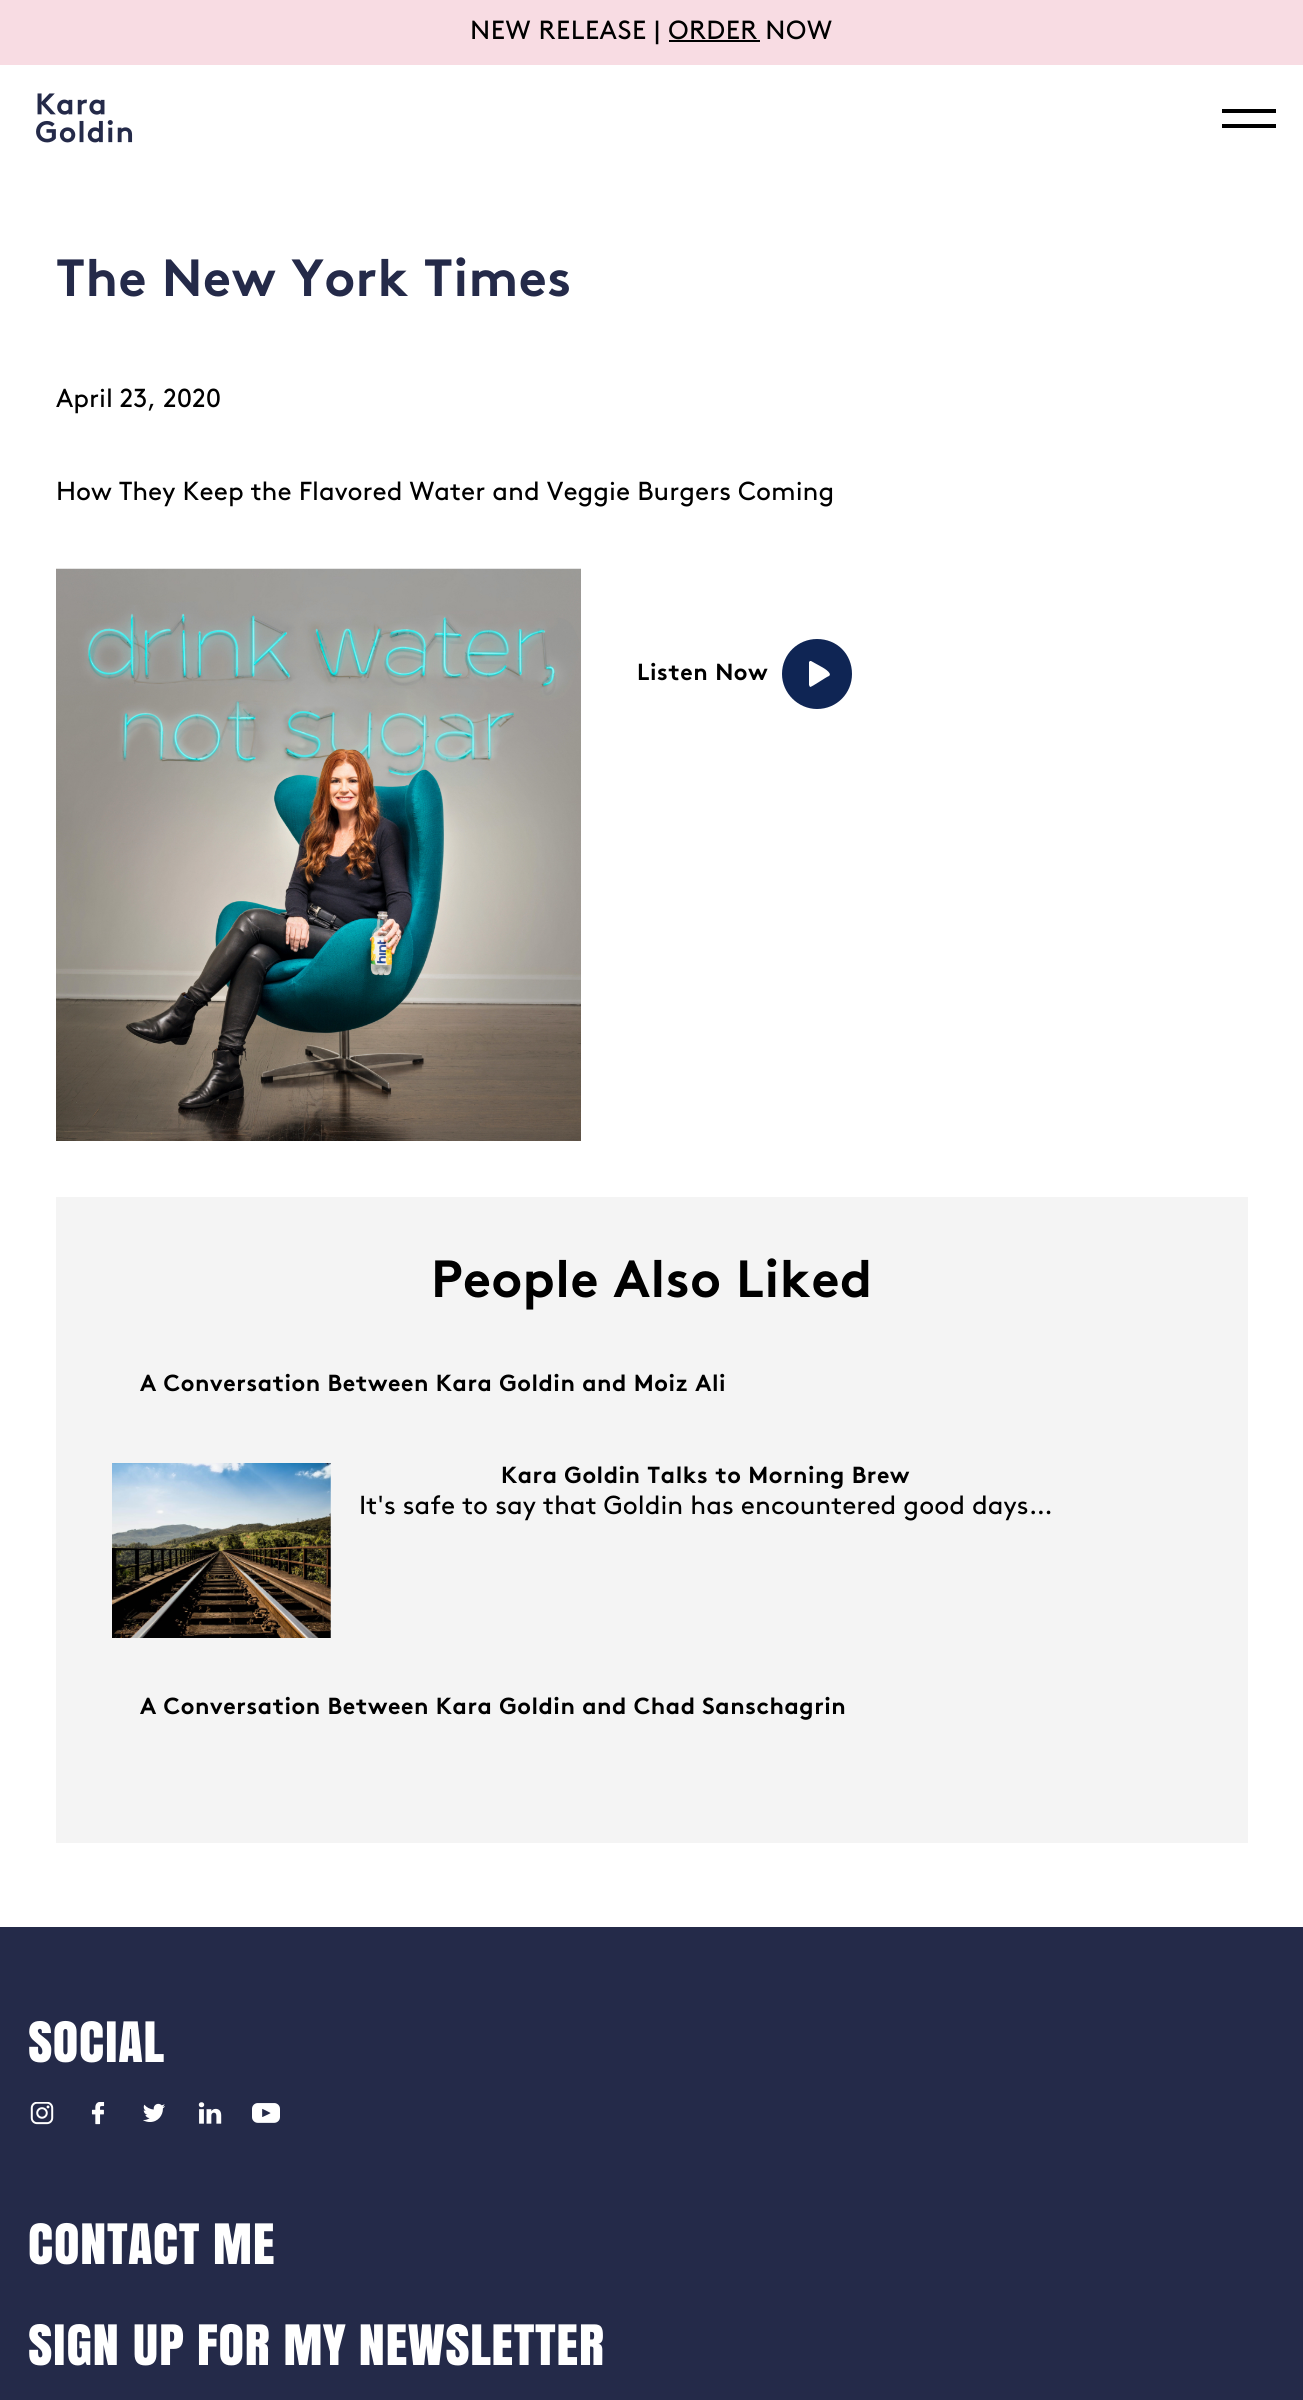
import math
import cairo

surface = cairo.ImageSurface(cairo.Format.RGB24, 1303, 2400)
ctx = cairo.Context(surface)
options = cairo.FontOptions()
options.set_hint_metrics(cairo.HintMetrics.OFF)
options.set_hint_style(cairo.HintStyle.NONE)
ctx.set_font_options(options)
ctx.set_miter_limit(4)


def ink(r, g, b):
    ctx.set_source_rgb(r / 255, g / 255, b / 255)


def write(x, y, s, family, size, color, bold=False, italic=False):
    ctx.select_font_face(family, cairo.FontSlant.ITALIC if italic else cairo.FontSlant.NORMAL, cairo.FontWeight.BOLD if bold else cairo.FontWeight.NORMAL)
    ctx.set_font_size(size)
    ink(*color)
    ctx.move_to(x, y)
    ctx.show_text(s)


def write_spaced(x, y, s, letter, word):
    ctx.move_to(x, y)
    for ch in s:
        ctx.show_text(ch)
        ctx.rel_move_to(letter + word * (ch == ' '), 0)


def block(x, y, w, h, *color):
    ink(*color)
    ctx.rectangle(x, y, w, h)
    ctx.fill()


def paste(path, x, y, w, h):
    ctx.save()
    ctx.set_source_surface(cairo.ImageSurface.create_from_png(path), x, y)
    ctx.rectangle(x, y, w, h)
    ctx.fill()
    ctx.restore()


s1 = dict(family="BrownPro", size=26.05, color=(0, 0, 0))

ink(255, 255, 255)
ctx.paint()
block(0, 0, 1303, 65, 248, 220, 227)
ctx.select_font_face("BrownPro")
ctx.set_font_size(26.25)
ink(0, 0, 0)
write_spaced(470, 39, "NEW RELEASE | ORDER NOW", 0.55, 0)
block(669, 40, 91, 2, 0, 0, 0)
paste("pic1.png", 36, 93, 97, 50)
block(1222, 109, 54, 4, 0, 0, 0)
block(1222, 124, 54, 4, 0, 0, 0)
ctx.select_font_face("BrownPro", cairo.FontSlant.NORMAL, cairo.FontWeight.BOLD)
ctx.set_font_size(52.25)
ink(36, 42, 73)
write_spaced(56, 296, "The New York Times", 0.55, 0)
write(56, 407, "April 23, 2020", **s1)
write(56, 500, "How They Keep the Flavored Water and Veggie Burgers Coming", **s1)
paste("pic2.png", 56, 568, 525, 573)
ctx.select_font_face("BrownPro", cairo.FontSlant.NORMAL, cairo.FontWeight.BOLD)
ctx.set_font_size(23.25)
write_spaced(637, 680, "Listen Now", 0.55, 0)
ink(15, 37, 84)
ctx.new_path()
ctx.move_to(817, 639)
ctx.curve_to(798, 639, 782, 654, 782, 674)
ctx.curve_to(782, 693, 798, 709, 817, 709)
ctx.curve_to(837, 709, 852, 693, 852, 674)
ctx.curve_to(852, 654, 837, 639, 817, 639)
ctx.close_path()
ctx.move_to(829, 676)
ctx.curve_to(826, 677, 812, 687, 810, 687)
ctx.line_to(809, 685)
ctx.line_to(809, 662)
ctx.line_to(810, 661)
ctx.line_to(811, 661)
ctx.line_to(820, 666)
ctx.curve_to(822, 667, 833, 673, 829, 676)
ctx.close_path()
ctx.fill()
block(56, 1197, 1192, 646, 244, 244, 244)
ctx.set_font_size(52.25)
ink(0, 0, 0)
write_spaced(431, 1297, "People Also Liked", 0.55, 0)
ctx.set_font_size(23.25)
write_spaced(140, 1391, "A Conversation Between Kara Goldin and Moiz Ali", 0.55, 0)
paste("pic3.png", 112, 1463, 219, 175)
write_spaced(501, 1483, "Kara Goldin Talks to Morning Brew", 0.55, 0)
write(359, 1514, "It's safe to say that Goldin has encountered good days…", **s1)
ctx.select_font_face("BrownPro", cairo.FontSlant.NORMAL, cairo.FontWeight.BOLD)
ctx.set_font_size(23.25)
write_spaced(140, 1714, "A Conversation Between Kara Goldin and Chad Sanschagrin", 0.55, 0)
block(0, 1927, 1303, 473, 36, 42, 73)
ctx.select_font_face("Anton")
ctx.set_font_size(52.25)
ink(255, 255, 255)
write_spaced(28, 2062, "SOCIAL", 0.55, 0)
paste("pic4.png", 30, 2102, 24, 23)
paste("pic5.png", 91, 2102, 14, 23)
paste("pic6.png", 143, 2103, 22, 19)
paste("pic7.png", 198, 2102, 24, 22)
paste("pic8.png", 252, 2103, 28, 20)
write_spaced(28, 2264, "CONTACT ME", 0.55, 0)
write_spaced(28, 2365, "SIGN UP FOR MY NEWSLETTER", 0.55, 0)
surface.write_to_png("screenshot.png")
